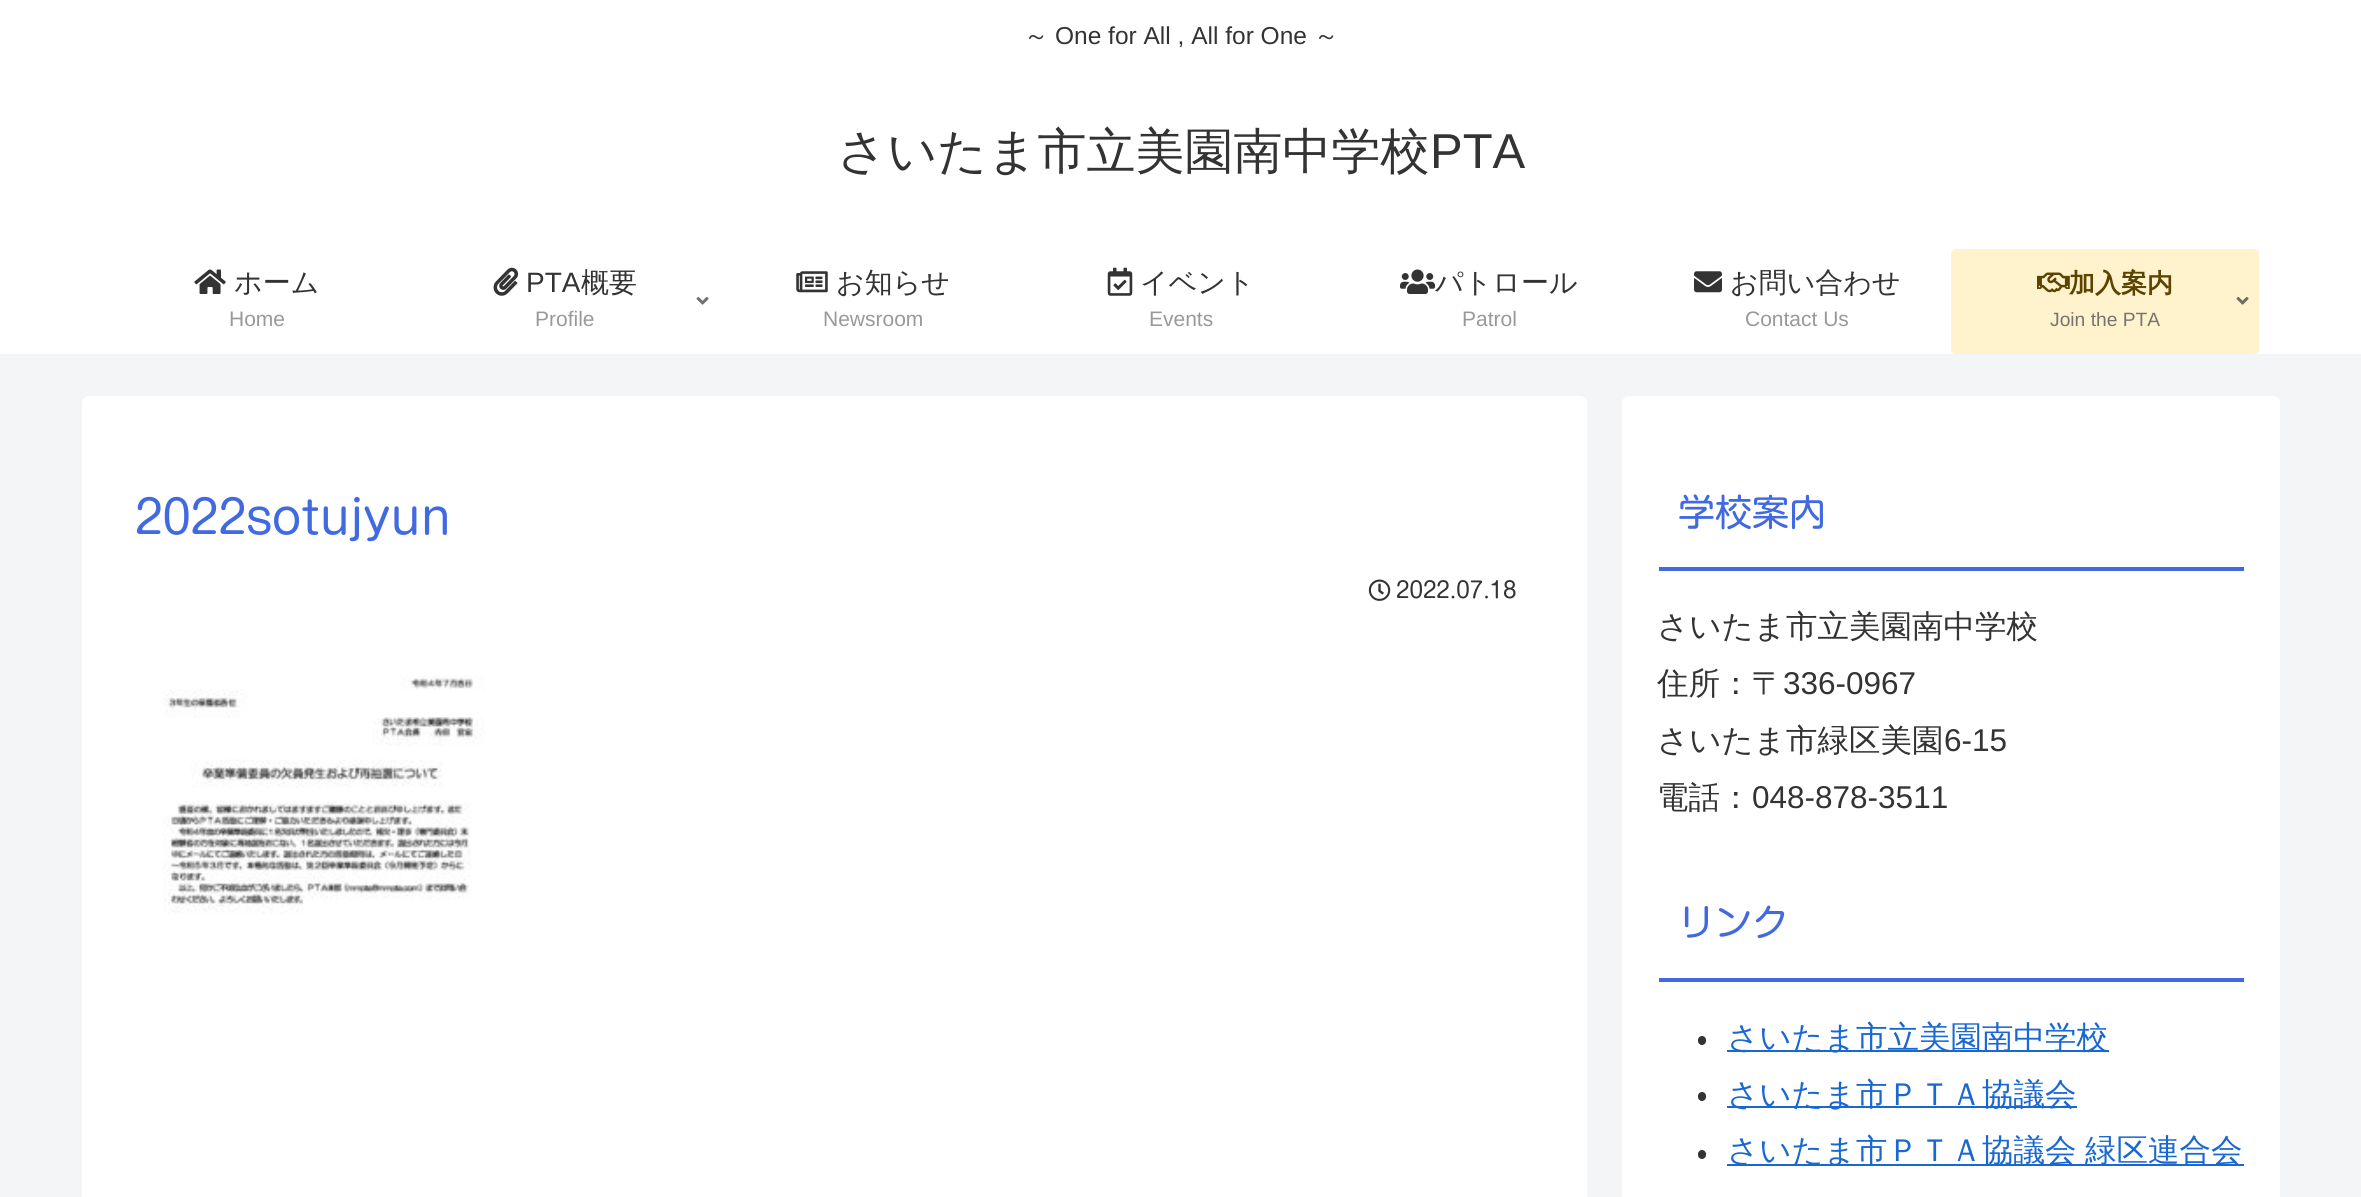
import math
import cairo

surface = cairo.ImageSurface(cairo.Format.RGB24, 2361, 1197)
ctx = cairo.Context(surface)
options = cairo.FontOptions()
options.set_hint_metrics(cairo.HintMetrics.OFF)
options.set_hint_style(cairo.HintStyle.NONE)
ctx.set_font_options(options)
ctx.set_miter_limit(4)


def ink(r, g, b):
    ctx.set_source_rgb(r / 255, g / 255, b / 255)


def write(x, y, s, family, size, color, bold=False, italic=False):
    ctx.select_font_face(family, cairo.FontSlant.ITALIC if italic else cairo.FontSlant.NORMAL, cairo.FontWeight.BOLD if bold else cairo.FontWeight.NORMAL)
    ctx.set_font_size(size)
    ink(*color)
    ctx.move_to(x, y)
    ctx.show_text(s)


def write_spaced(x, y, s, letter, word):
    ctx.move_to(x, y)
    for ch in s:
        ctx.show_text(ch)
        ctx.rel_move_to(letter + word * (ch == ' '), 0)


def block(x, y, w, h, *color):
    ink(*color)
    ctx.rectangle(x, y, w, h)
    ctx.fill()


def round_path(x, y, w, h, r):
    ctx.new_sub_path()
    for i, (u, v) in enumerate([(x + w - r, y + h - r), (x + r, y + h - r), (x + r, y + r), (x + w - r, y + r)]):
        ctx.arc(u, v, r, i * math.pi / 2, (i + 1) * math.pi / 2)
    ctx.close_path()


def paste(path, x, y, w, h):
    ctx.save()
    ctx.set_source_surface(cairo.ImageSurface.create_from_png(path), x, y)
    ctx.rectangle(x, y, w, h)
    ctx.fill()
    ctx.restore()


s1 = dict(family="WenQuanYi Zen Hei Medium", size=24.5, color=(51, 51, 51))
s2 = dict(family="Liberation Sans", size=24.5, color=(51, 51, 51))
s3 = dict(family="WenQuanYi Zen Hei Medium", size=49, color=(51, 51, 51))
s4 = dict(family="Liberation Sans", size=49, color=(51, 51, 51))
s5 = dict(family="WenQuanYi Zen Hei Medium", size=28, color=(51, 51, 51))
s6 = dict(family="Liberation Sans", size=21, color=(153, 153, 153))
s7 = dict(family="Liberation Sans", size=28, color=(51, 51, 51))
s8 = dict(family="WenQuanYi Zen Hei", size=26, color=(92, 68, 0), bold=True)
s9 = dict(family="Liberation Sans", size=19.25, color=(117, 116, 112))
s10 = dict(family="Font", size=45.5, color=(65, 105, 225))
s11 = dict(family="Font", size=22, color=(51, 51, 51))
s12 = dict(family="Font", size=37, color=(65, 105, 225))
s13 = dict(family="WenQuanYi Zen Hei Medium", size=31.5, color=(51, 51, 51))
s14 = dict(family="Liberation Sans", size=31.5, color=(51, 51, 51))
s15 = dict(family="WenQuanYi Zen Hei Medium", size=31.5, color=(25, 103, 210))

ink(244, 245, 247)
ctx.paint()
block(0, 0, 2361, 354, 255, 255, 255)
write(1024, 44, "～", **s1)
write(1055, 44, "One for All , All for One", **s2)
write(1314, 44, "～", **s1)
write(837, 168, "さいたま市立美園南中学校", **s3)
write(1430, 168, "PTA", **s4)
paste("pic1.png", 194, 269, 32, 25)
write(234, 292, "ホーム", **s5)
write(229, 326, "Home", **s6)
paste("pic2.png", 493, 267, 25, 29)
write(526, 292, "PTA", **s7)
write(581, 292, "概要", **s5)
write(535, 326, "Profile", **s6)
paste("pic3.png", 696, 297, 13, 8)
paste("pic4.png", 796, 271, 32, 22)
write(836, 292, "お知らせ", **s5)
write(823, 326, "Newsroom", **s6)
paste("pic5.png", 1107, 267, 26, 29)
write(1140, 292, "イベント", **s5)
write(1149, 326, "Events", **s6)
paste("pic6.png", 1400, 269, 35, 25)
write(1435, 292, "パトロール", **s5)
write(1462, 326, "Patrol", **s6)
paste("pic7.png", 1694, 271, 28, 22)
write(1730, 292, "お問い合わせ", **s5)
write(1745, 326, "Contact Us", **s6)
ink(255, 243, 205)
round_path(1951, 249, 308, 105, 5)
ctx.fill()
paste("pic8.png", 2037, 272, 33, 21)
write(2069, 292, "加入案内", **s8)
write(2050, 326, "Join the PTA", **s9)
paste("pic9.png", 2236, 297, 13, 8)
ink(255, 255, 255)
round_path(82, 396, 1505, 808, 7)
ctx.fill()
write(135, 534, "2022sotujyun", **s10)
paste("pic10.png", 1368, 579, 23, 22)
write(1396, 598, "2022.07.18", **s11)
paste("pic11.png", 163, 675, 322, 239)
ink(255, 255, 255)
round_path(1622, 396, 658, 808, 7)
ctx.fill()
block(1659, 567, 585, 4, 65, 105, 225)
write(1678, 526, "学校案内", **s12)
write(1657, 637, "さいたま市立美園南中学校", **s13)
write(1657, 694, "住所：〒", **s13)
write(1783, 694, "336-0967", **s14)
write(1657, 751, "さいたま市緑区美園", **s13)
write(1944, 751, "6-15", **s14)
write(1657, 808, "電話：", **s13)
write(1752, 808, "048-878-3511", **s14)
block(1659, 978, 585, 4, 65, 105, 225)
write(1678, 936, "リンク", **s12)
ink(51, 51, 51)
round_path(1698, 1036, 8, 9, 4)
ctx.fill()
block(1727, 1050, 382, 2, 25, 103, 210)
write(1727, 1048, "さいたま市立美園南中学校", **s15)
ink(51, 51, 51)
round_path(1698, 1092, 8, 9, 4)
ctx.fill()
block(1727, 1106, 350, 2, 25, 103, 210)
write(1727, 1105, "さいたま市ＰＴＡ協議会", **s15)
ink(51, 51, 51)
round_path(1698, 1150, 8, 9, 4)
ctx.fill()
block(1727, 1164, 517, 2, 25, 103, 210)
write_spaced(1727, 1161, "さいたま市ＰＴＡ協議会 緑区連合会", 0, -1)
surface.write_to_png("screenshot.png")
